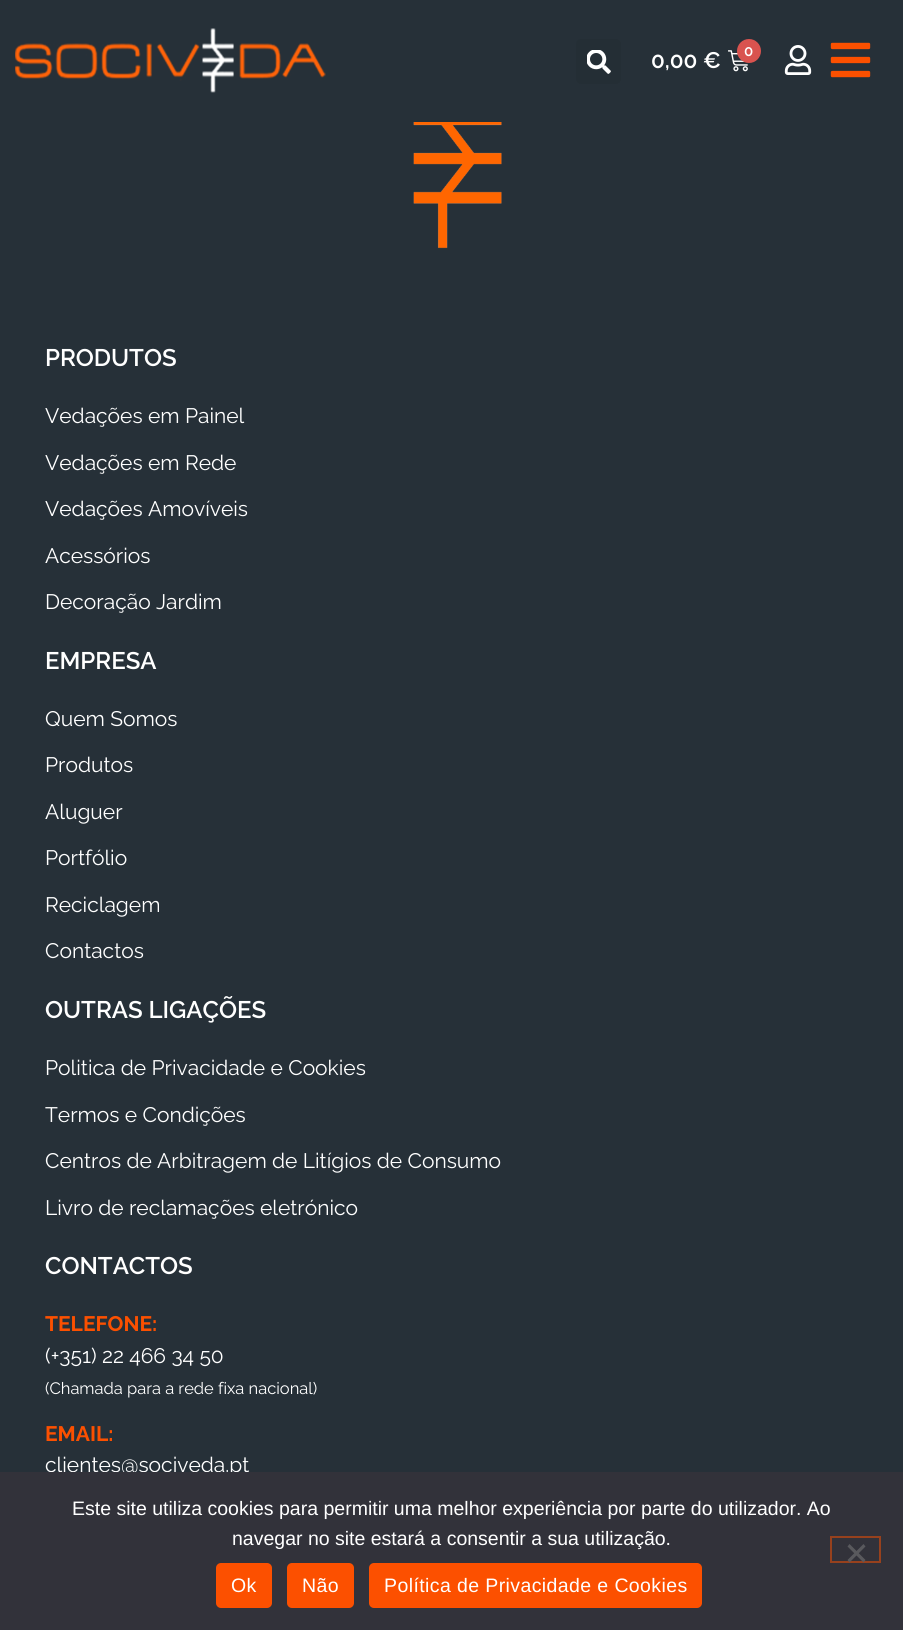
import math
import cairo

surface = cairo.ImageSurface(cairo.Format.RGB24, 903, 1630)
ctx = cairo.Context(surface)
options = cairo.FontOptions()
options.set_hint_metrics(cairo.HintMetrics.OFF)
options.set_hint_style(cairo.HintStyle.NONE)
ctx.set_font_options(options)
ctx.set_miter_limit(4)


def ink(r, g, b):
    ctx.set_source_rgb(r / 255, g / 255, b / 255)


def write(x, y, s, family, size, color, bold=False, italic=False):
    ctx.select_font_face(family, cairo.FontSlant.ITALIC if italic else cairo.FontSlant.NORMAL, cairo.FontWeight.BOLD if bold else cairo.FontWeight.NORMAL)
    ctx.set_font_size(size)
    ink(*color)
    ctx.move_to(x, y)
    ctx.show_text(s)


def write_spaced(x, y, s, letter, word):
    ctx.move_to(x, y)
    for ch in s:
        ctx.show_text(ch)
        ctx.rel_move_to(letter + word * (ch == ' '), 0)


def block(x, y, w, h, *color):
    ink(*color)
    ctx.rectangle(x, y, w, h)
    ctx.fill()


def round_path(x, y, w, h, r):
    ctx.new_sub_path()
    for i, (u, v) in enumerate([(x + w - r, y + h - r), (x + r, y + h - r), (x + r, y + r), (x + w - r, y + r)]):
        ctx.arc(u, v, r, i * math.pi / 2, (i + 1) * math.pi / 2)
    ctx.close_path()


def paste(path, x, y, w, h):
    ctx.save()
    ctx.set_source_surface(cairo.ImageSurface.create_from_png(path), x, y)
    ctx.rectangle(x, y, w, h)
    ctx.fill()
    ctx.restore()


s1 = dict(family="Raleway SemiBold", size=22.5, color=(255, 255, 255))
s2 = dict(family="Raleway SemiBold", size=15, color=(255, 255, 255))
s3 = dict(family="Raleway SemiBold", size=24, color=(255, 255, 255))
s4 = dict(family="Raleway", size=21, color=(255, 255, 255))
s5 = dict(family="Raleway", size=21, color=(252, 80, 0), bold=True)
s6 = dict(family="Raleway", size=16.5, color=(255, 255, 255))
s7 = dict(family="Liberation Sans", size=19.5, color=(255, 255, 255))

ink(38, 48, 56)
ctx.paint()
paste("pic1.png", 15, 28, 311, 65)
ink(36, 46, 53)
round_path(576, 39, 45, 45, 5)
ctx.fill()
paste("pic2.png", 587, 50, 24, 24)
write(651, 68, "0,00 €", **s1)
paste("pic3.png", 728, 50, 20, 22)
ink(217, 83, 79)
ctx.arc(749, 51, 12, 0, 2 * math.pi)
ctx.fill()
write(744, 56, "0", **s2)
paste("pic4.png", 784, 45, 28, 30)
paste("pic5.png", 830, 42, 41, 36)
paste("pic6.png", 413, 122, 89, 127)
write(45, 366, "PRODUTOS", **s3)
write(45, 423, "Vedações em Painel", **s4)
write(45, 470, "Vedações em Rede", **s4)
write(45, 516, "Vedações Amovíveis", **s4)
write(45, 563, "Acessórios", **s4)
write(45, 609, "Decoração Jardim", **s4)
write(45, 669, "EMPRESA", **s3)
write(45, 726, "Quem Somos", **s4)
write(45, 772, "Produtos", **s4)
write(45, 819, "Aluguer", **s4)
write(45, 865, "Portfólio", **s4)
write(45, 912, "Reciclagem", **s4)
write(45, 958, "Contactos", **s4)
write(45, 1018, "OUTRAS LIGAÇÕES", **s3)
write(45, 1075, "Politica de Privacidade e Cookies", **s4)
write(45, 1122, "Termos e Condições", **s4)
write(45, 1168, "Centros de Arbitragem de Litígios de Consumo", **s4)
write(45, 1215, "Livro de reclamações eletrónico", **s4)
write(45, 1274, "CONTACTOS", **s3)
write(45, 1331, "TELEFONE:", **s5)
write(45, 1363, "(+351) 22 466 34 50", **s4)
write(45, 1394, "(Chamada para a rede fixa nacional)", **s6)
write(45, 1441, "EMAIL:", **s5)
write(45, 1472, "clientes@sociveda.pt", **s4)
block(0, 1472, 903, 158, 50, 50, 58)
write(72, 1515, "Este site utiliza cookies para permitir uma melhor experiência por parte do utilizador. Ao", **s7)
write(232, 1545, "navegar no site estará a consentir a sua utilização.", **s7)
ctx.rectangle(831, 1537, 49, 25)
ink(151, 65, 29)
ctx.stroke()
ink(89, 89, 93)
ctx.new_path()
ctx.move_to(863.5, 1544)
ctx.line_to(865.5, 1546.5)
ctx.line_to(849.5, 1562.5)
ctx.line_to(847.5, 1560)
ctx.close_path()
ctx.fill()
ctx.new_path()
ctx.move_to(847.5, 1546.5)
ctx.line_to(849.5, 1544)
ctx.line_to(865.5, 1560)
ctx.line_to(863.5, 1562.5)
ctx.close_path()
ctx.fill()
ink(252, 80, 0)
round_path(216, 1563, 56, 45, 5)
ctx.fill()
ink(255, 255, 255)
write_spaced(231, 1592, "Ok", 0.4, 0)
ink(252, 80, 0)
round_path(287, 1563, 67, 45, 5)
ctx.fill()
ink(255, 255, 255)
write_spaced(302, 1592, "Não", 0.4, 0)
ink(252, 80, 0)
round_path(369, 1563, 333, 45, 5)
ctx.fill()
ink(255, 255, 255)
write_spaced(384, 1592, "Política de Privacidade e Cookies", 0.4, 0)
surface.write_to_png("screenshot.png")
